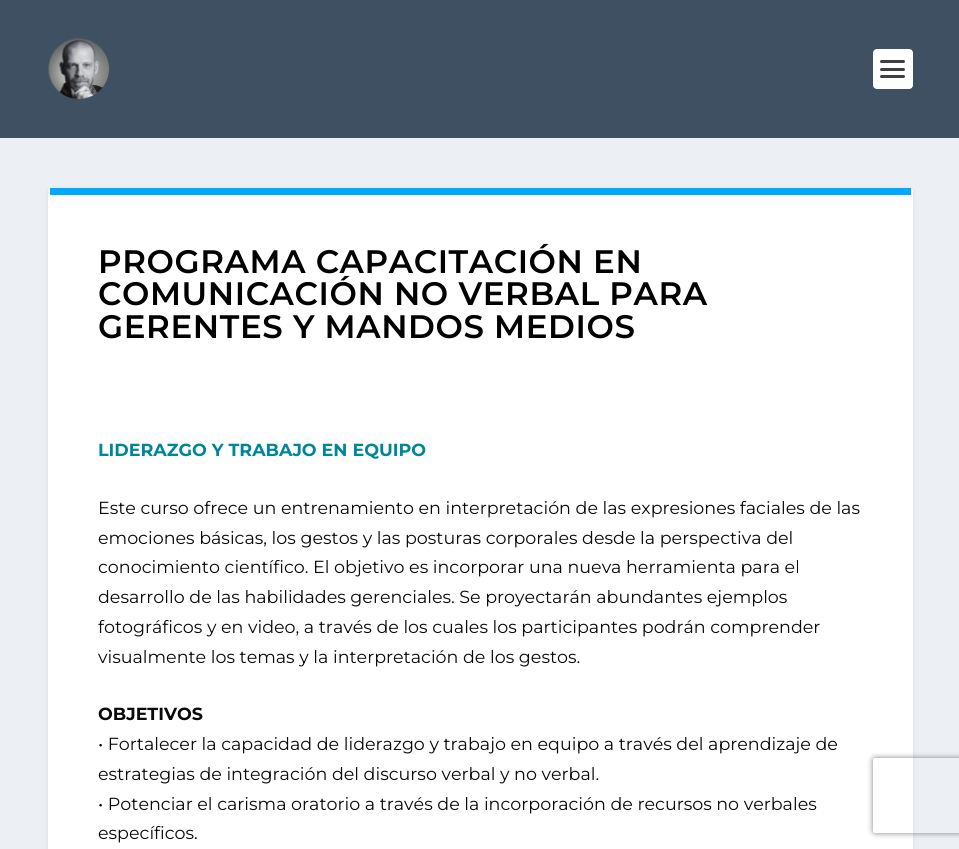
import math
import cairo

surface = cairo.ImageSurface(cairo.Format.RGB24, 959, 849)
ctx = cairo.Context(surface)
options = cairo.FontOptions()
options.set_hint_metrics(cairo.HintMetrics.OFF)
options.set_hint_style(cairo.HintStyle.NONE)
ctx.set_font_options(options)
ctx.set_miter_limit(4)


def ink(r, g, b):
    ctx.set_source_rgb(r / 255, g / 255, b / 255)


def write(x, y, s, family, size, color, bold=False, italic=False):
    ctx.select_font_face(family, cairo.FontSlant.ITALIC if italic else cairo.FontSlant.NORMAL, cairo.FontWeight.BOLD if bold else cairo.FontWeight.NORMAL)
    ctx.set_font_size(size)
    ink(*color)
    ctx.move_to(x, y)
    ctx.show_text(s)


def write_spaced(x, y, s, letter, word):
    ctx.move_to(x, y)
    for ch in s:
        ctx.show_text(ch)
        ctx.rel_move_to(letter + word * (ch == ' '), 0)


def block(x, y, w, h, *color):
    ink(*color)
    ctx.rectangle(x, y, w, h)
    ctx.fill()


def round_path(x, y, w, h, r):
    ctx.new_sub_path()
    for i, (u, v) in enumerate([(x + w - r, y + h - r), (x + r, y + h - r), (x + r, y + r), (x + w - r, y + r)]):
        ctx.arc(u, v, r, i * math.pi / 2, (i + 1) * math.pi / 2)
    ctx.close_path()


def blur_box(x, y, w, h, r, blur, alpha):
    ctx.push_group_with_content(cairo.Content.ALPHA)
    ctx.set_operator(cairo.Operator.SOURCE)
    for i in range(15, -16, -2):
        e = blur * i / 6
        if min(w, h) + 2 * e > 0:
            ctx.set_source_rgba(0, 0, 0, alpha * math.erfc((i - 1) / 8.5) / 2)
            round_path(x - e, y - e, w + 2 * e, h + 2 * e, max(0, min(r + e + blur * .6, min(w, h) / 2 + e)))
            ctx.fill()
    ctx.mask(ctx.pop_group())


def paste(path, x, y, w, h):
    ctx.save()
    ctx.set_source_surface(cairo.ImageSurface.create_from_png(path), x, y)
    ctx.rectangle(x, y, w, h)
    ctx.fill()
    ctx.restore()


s1 = dict(family="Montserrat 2 Thin", size=17.5, color=(0, 134, 155))
s2 = dict(family="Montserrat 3 Thin", size=17.5, color=(10, 10, 10))
s3 = dict(family="Montserrat 2 Thin", size=17.5, color=(10, 10, 10))

ink(236, 240, 245)
ctx.paint()
block(0, 0, 959, 138, 62, 80, 98)
paste("pic1.png", 48, 38, 62, 62)
ink(255, 255, 255)
round_path(873, 49, 40, 40, 4)
ctx.fill()
ink(64, 64, 64)
round_path(880, 60, 25, 3, 1.5)
ctx.fill()
round_path(880, 68, 25, 3, 1.5)
ctx.fill()
round_path(880, 75, 25, 3, 1.5)
ctx.fill()
ink(0, 0, 0)
blur_box(48, 189, 865, 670, 4, 2, 0.1)
ink(255, 255, 255)
round_path(48, 188, 865, 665, 4)
ctx.fill()
block(50, 188, 861, 7, 0, 168, 255)
ctx.select_font_face("Montserrat Thin")
ctx.set_font_size(32.5)
ink(0, 0, 0)
write_spaced(98, 273, "PROGRAMA CAPACITACIÓN EN", 0.6, 0)
write_spaced(98, 305, "COMUNICACIÓN NO VERBAL PARA", 0.6, 0)
write_spaced(98, 338, "GERENTES Y MANDOS MEDIOS", 0.6, 0)
write(98, 456, "LIDERAZGO Y TRABAJO EN EQUIPO", **s1)
write(98, 514, "Este curso ofrece un entrenamiento en interpretación de las expresiones faciales de las", **s2)
write(98, 544, "emociones básicas, los gestos y las posturas corporales desde la perspectiva del", **s2)
write(98, 573, "conocimiento científico. El objetivo es incorporar una nueva herramienta para el", **s2)
write(98, 603, "desarrollo de las habilidades gerenciales. Se proyectarán abundantes ejemplos", **s2)
write(98, 633, "fotográficos y en video, a través de los cuales los participantes podrán comprender", **s2)
write(98, 663, "visualmente los temas y la interpretación de los gestos.", **s2)
write(98, 720, "OBJETIVOS", **s3)
write(98, 750, "• Fortalecer la capacidad de liderazgo y trabajo en equipo a través del aprendizaje de", **s2)
write(98, 780, "estrategias de integración del discurso verbal y no verbal.", **s2)
write(98, 810, "• Potenciar el carisma oratorio a través de la incorporación de recursos no verbales", **s2)
write(98, 839, "específicos.", **s2)
ctx.save()
ctx.set_fill_rule(cairo.FillRule.EVEN_ODD)
ctx.new_path()
ctx.move_to(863, 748)
ctx.line_to(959, 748)
ctx.line_to(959, 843)
ctx.line_to(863, 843)
ctx.close_path()
ctx.move_to(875.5, 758)
ctx.line_to(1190.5, 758)
ctx.curve_to(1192, 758, 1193, 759, 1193, 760.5)
ctx.line_to(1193, 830.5)
ctx.curve_to(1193, 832, 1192, 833, 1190.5, 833)
ctx.line_to(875.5, 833)
ctx.curve_to(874, 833, 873, 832, 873, 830.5)
ctx.line_to(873, 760.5)
ctx.curve_to(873, 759, 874, 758, 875.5, 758)
ctx.close_path()
ctx.clip()
ink(128, 128, 128)
blur_box(873, 758, 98, 75, 2.5, 3, 1)
ctx.restore()
surface.write_to_png("screenshot.png")
